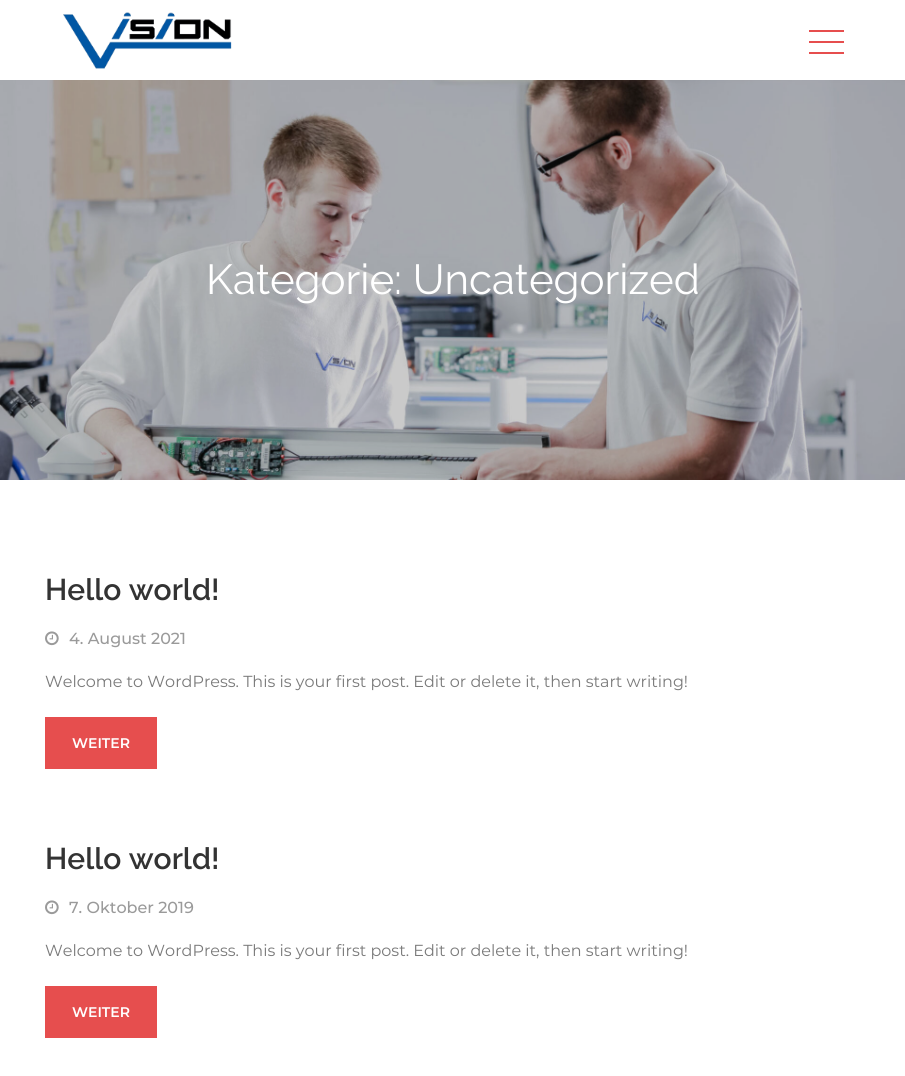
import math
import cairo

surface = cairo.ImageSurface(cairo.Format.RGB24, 905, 1076)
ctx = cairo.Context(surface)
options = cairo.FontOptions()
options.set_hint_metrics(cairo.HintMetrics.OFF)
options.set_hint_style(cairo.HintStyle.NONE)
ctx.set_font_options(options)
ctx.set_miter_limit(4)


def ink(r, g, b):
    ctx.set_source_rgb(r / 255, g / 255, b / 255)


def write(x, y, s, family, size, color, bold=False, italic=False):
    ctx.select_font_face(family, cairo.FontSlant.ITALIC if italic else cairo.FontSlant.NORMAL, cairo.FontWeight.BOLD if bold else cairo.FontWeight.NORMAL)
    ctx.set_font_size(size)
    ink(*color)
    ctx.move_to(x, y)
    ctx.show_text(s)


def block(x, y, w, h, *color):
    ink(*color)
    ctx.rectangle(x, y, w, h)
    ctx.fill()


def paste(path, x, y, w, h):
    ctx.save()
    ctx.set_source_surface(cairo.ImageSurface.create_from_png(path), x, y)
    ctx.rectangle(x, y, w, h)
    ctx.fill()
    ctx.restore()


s1 = dict(family="Raleway", size=42, color=(255, 255, 255))
s2 = dict(family="Raleway SemiBold", size=30, color=(51, 51, 51))
s3 = dict(family="Montserrat Medium", size=16, color=(154, 154, 154))
s4 = dict(family="Montserrat", size=16, color=(122, 122, 122))
s5 = dict(family="Montserrat SemiBold", size=14, color=(255, 255, 255))

ink(255, 255, 255)
ctx.paint()
paste("pic1.png", 63, 12, 169, 57)
block(809, 30, 35, 2, 230, 78, 78)
block(809, 41, 35, 2, 230, 78, 78)
block(809, 52, 35, 2, 230, 78, 78)
paste("pic2.png", 0, 80, 905, 400)
write(206, 294, "Kategorie: Uncategorized", **s1)
write(45, 600, "Hello world!", **s2)
paste("pic3.png", 45, 631, 14, 15)
write(69, 644, "4. August 2021", **s3)
write(45, 687, "Welcome to WordPress. This is your first post. Edit or delete it, then start writing!", **s4)
block(45, 717, 112, 52, 230, 78, 78)
write(72, 748, "WEITER", **s5)
write(45, 869, "Hello world!", **s2)
paste("pic3.png", 45, 900, 14, 15)
write(69, 913, "7. Oktober 2019", **s3)
write(45, 956, "Welcome to WordPress. This is your first post. Edit or delete it, then start writing!", **s4)
block(45, 986, 112, 52, 230, 78, 78)
write(72, 1017, "WEITER", **s5)
surface.write_to_png("screenshot.png")
